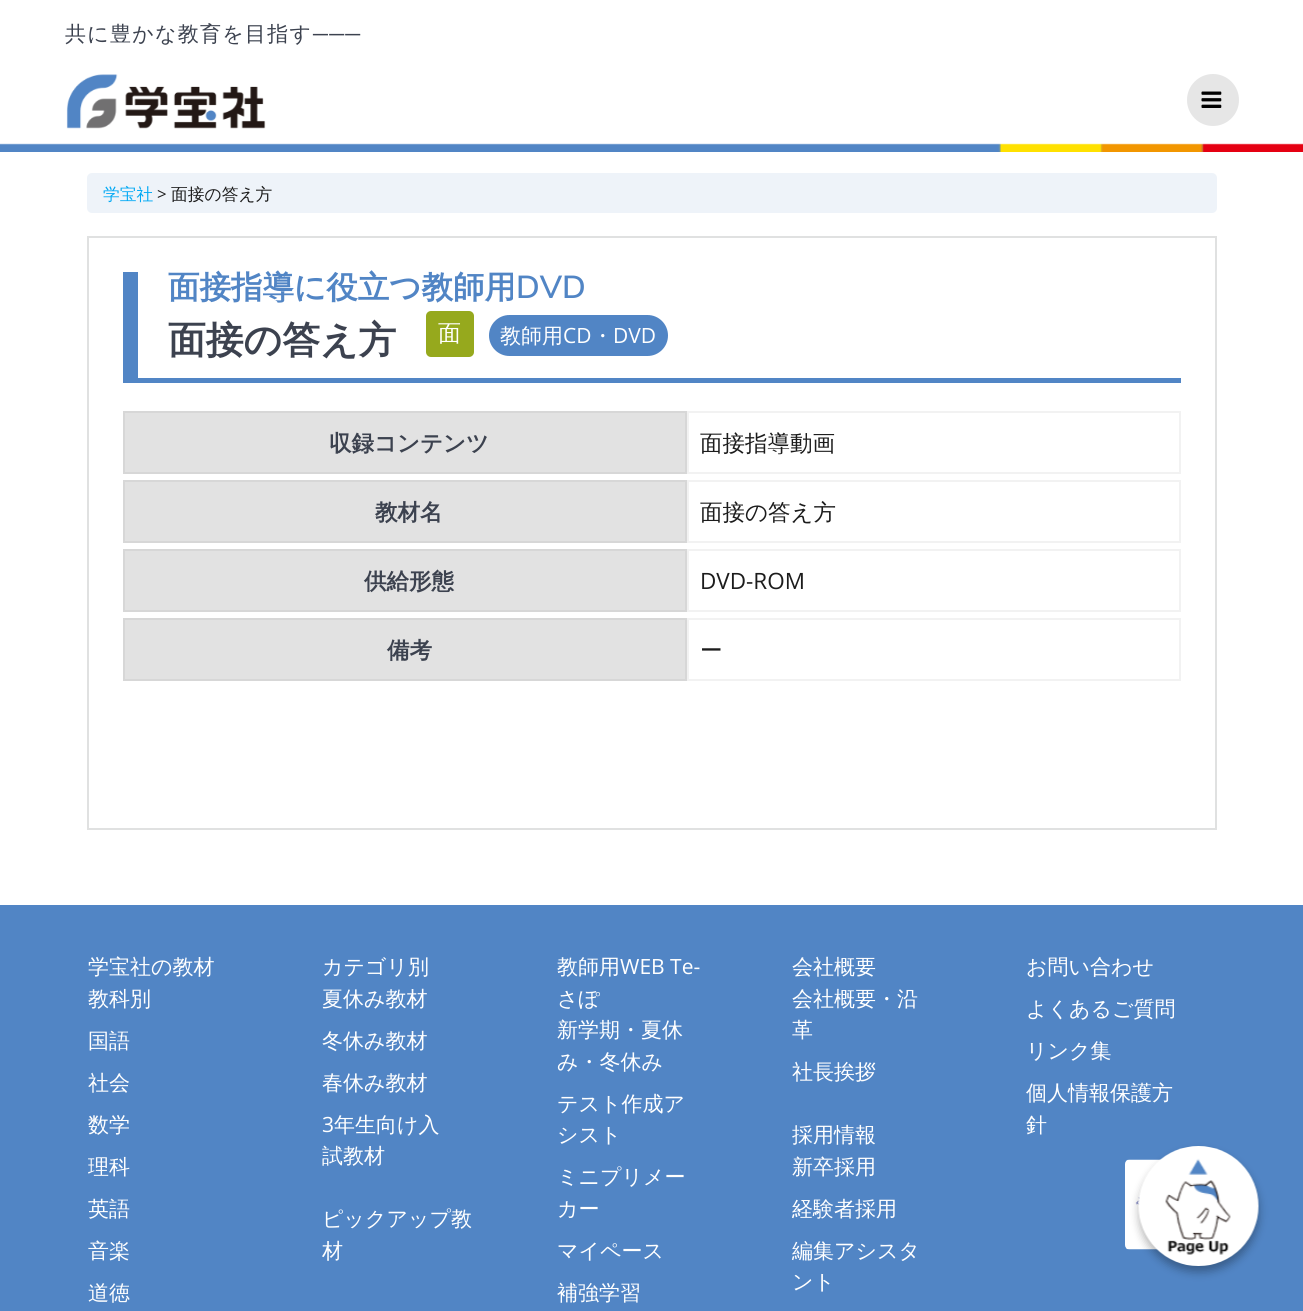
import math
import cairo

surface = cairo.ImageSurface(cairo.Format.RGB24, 1303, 1311)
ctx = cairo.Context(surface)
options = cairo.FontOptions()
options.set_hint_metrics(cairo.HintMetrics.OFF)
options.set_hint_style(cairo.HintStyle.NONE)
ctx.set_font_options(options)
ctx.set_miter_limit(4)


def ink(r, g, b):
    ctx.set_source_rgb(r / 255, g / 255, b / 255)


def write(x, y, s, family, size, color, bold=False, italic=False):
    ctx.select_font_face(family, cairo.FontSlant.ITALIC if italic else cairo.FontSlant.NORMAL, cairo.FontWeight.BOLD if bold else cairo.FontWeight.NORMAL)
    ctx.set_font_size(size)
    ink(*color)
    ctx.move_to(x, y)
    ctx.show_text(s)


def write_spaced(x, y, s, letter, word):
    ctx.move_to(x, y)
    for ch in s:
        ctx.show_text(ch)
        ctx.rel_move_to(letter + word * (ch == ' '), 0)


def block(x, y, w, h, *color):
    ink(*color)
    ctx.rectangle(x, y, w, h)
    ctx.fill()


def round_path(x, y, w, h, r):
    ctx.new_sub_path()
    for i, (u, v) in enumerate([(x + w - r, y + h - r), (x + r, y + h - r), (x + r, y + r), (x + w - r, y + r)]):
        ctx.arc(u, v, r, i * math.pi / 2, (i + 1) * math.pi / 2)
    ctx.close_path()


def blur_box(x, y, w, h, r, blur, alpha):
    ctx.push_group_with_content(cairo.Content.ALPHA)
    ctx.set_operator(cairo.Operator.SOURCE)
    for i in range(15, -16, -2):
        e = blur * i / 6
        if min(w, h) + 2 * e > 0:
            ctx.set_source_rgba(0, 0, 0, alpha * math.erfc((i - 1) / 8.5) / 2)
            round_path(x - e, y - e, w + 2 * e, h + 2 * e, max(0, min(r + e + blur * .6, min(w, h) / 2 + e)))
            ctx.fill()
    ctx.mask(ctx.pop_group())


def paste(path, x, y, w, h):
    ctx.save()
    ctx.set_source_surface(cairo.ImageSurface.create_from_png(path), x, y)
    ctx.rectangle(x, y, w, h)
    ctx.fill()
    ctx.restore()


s1 = dict(family="WenQuanYi Zen Hei Medium", size=16.75, color=(3, 169, 244))
s2 = dict(family="Open Sans", size=16.75, color=(28, 28, 28))
s3 = dict(family="WenQuanYi Zen Hei Medium", size=16.75, color=(28, 28, 28))
s4 = dict(family="WenQuanYi Zen Hei", size=31.5, color=(81, 133, 197), bold=True)
s5 = dict(family="Muli SemiBold", size=31.5, color=(81, 133, 197))
s6 = dict(family="WenQuanYi Zen Hei", size=37.75, color=(60, 66, 79), bold=True)
s7 = dict(family="WenQuanYi Zen Hei Medium", size=23, color=(255, 255, 255))
s8 = dict(family="WenQuanYi Zen Hei Medium", size=21, color=(255, 255, 255))
s9 = dict(family="Open Sans", size=21, color=(255, 255, 255))
s10 = dict(family="WenQuanYi Zen Hei", size=22.5, color=(60, 66, 79), bold=True)
s11 = dict(family="WenQuanYi Zen Hei Medium", size=22.5, color=(28, 28, 28))
s12 = dict(family="Open Sans", size=22.5, color=(28, 28, 28))

ink(255, 255, 255)
ctx.paint()
paste("pic1.png", 0, 143, 1303, 9)
ctx.select_font_face("WenQuanYi Zen Hei Medium")
ctx.set_font_size(21)
ink(60, 66, 79)
write_spaced(65, 41, "共に豊かな教育を目指す", 1.25, 0)
ctx.select_font_face("Liberation Sans")
write_spaced(313, 41, "───", 1.25, 0)
paste("pic2.png", 66, 74, 200, 55)
ink(230, 230, 230)
ctx.arc(1213, 100, 26, 0, 2 * math.pi)
ctx.fill()
paste("pic3.png", 1201, 91, 21, 17)
ink(238, 243, 249)
round_path(87, 173, 1130, 40, 5)
ctx.fill()
write(103, 200, "学宝社", **s1)
write(157, 200, ">", **s2)
write(171, 200, "面接の答え方", **s3)
ctx.rectangle(88, 237, 1128, 592)
ink(224, 225, 225)
ctx.stroke()
block(138, 378, 1043, 5, 81, 133, 197)
block(123, 272, 15, 111, 81, 133, 197)
write(168, 298, "面接指導に役立つ教師用", **s4)
write(516, 298, "DVD", **s5)
write(168, 353, "面接の答え方", **s6)
ink(150, 169, 29)
round_path(426, 311, 48, 46, 5)
ctx.fill()
write(438, 341, "面", **s7)
ink(81, 133, 197)
round_path(489, 315, 179, 41, 20.5)
ctx.fill()
write(500, 343, "教師用", **s8)
write(563, 343, "CD", **s9)
write(592, 343, "・", **s8)
write(613, 343, "DVD", **s9)
ink(226, 226, 226)
ctx.rectangle(124, 412, 562, 61)
ctx.fill_preserve()
ink(215, 215, 215)
ctx.stroke()
write(329, 451, "収録コンテンツ", **s10)
ctx.rectangle(688, 412, 492, 61)
ink(242, 242, 242)
ctx.stroke()
write(700, 451, "面接指導動画", **s11)
ink(226, 226, 226)
ctx.rectangle(124, 481, 562, 61)
ctx.fill_preserve()
ink(215, 215, 215)
ctx.stroke()
write(375, 520, "教材名", **s10)
ctx.rectangle(688, 481, 492, 61)
ink(242, 242, 242)
ctx.stroke()
write(700, 520, "面接の答え方", **s11)
ink(226, 226, 226)
ctx.rectangle(124, 550, 562, 61)
ctx.fill_preserve()
ink(215, 215, 215)
ctx.stroke()
write(364, 589, "供給形態", **s10)
ctx.rectangle(688, 550, 492, 61)
ink(242, 242, 242)
ctx.stroke()
write(700, 589, "DVD-ROM", **s12)
ink(226, 226, 226)
ctx.rectangle(124, 619, 562, 61)
ctx.fill_preserve()
ink(215, 215, 215)
ctx.stroke()
write(387, 658, "備考", **s10)
ctx.rectangle(688, 619, 492, 61)
ink(242, 242, 242)
ctx.stroke()
write(700, 658, "ー", **s11)
block(0, 905, 1303, 406, 81, 133, 197)
write(88, 974, "学宝社の教材", **s8)
write(88, 1006, "教科別", **s8)
write(88, 1048, "国語", **s8)
write(88, 1090, "社会", **s8)
write(88, 1132, "数学", **s8)
write(88, 1174, "理科", **s8)
write(88, 1216, "英語", **s8)
write(88, 1258, "音楽", **s8)
write(88, 1300, "道徳", **s8)
write(322, 974, "カテゴリ別", **s8)
write(322, 1006, "夏休み教材", **s8)
write(322, 1048, "冬休み教材", **s8)
write(322, 1090, "春休み教材", **s8)
write(322, 1132, "3", **s9)
write(334, 1132, "年生向け入", **s8)
write(322, 1163, "試教材", **s8)
write(322, 1226, "ピックアップ教", **s8)
write(322, 1258, "材", **s8)
write(557, 974, "教師用", **s8)
write(620, 974, "WEB Te-", **s9)
write(557, 1006, "さぽ", **s8)
write(557, 1037, "新学期・夏休", **s8)
write(557, 1069, "み・冬休み", **s8)
write(557, 1111, "テスト作成ア", **s8)
write(557, 1142, "シスト", **s8)
write(557, 1184, "ミニプリメー", **s8)
write(557, 1216, "カー", **s8)
write(557, 1258, "マイペース", **s8)
write(557, 1300, "補強学習", **s8)
write(792, 974, "会社概要", **s8)
write(792, 1006, "会社概要・沿", **s8)
write(792, 1037, "革", **s8)
write(792, 1079, "社長挨拶", **s8)
write(792, 1142, "採用情報", **s8)
write(792, 1174, "新卒採用", **s8)
write(792, 1216, "経験者採用", **s8)
write(792, 1258, "編集アシスタ", **s8)
write(792, 1289, "ント", **s8)
write(1026, 974, "お問い合わせ", **s8)
write(1026, 1016, "よくあるご質問", **s8)
write(1026, 1058, "リンク集", **s8)
write(1026, 1100, "個人情報保護方", **s8)
write(1026, 1132, "針", **s8)
paste("pic4.png", 1125, 1159, 37, 91)
ink(0, 0, 0)
blur_box(1139, 1152, 120, 120, 60, 4.5, 0.3)
paste("pic5.png", 1138, 1146, 121, 120)
surface.write_to_png("screenshot.png")
